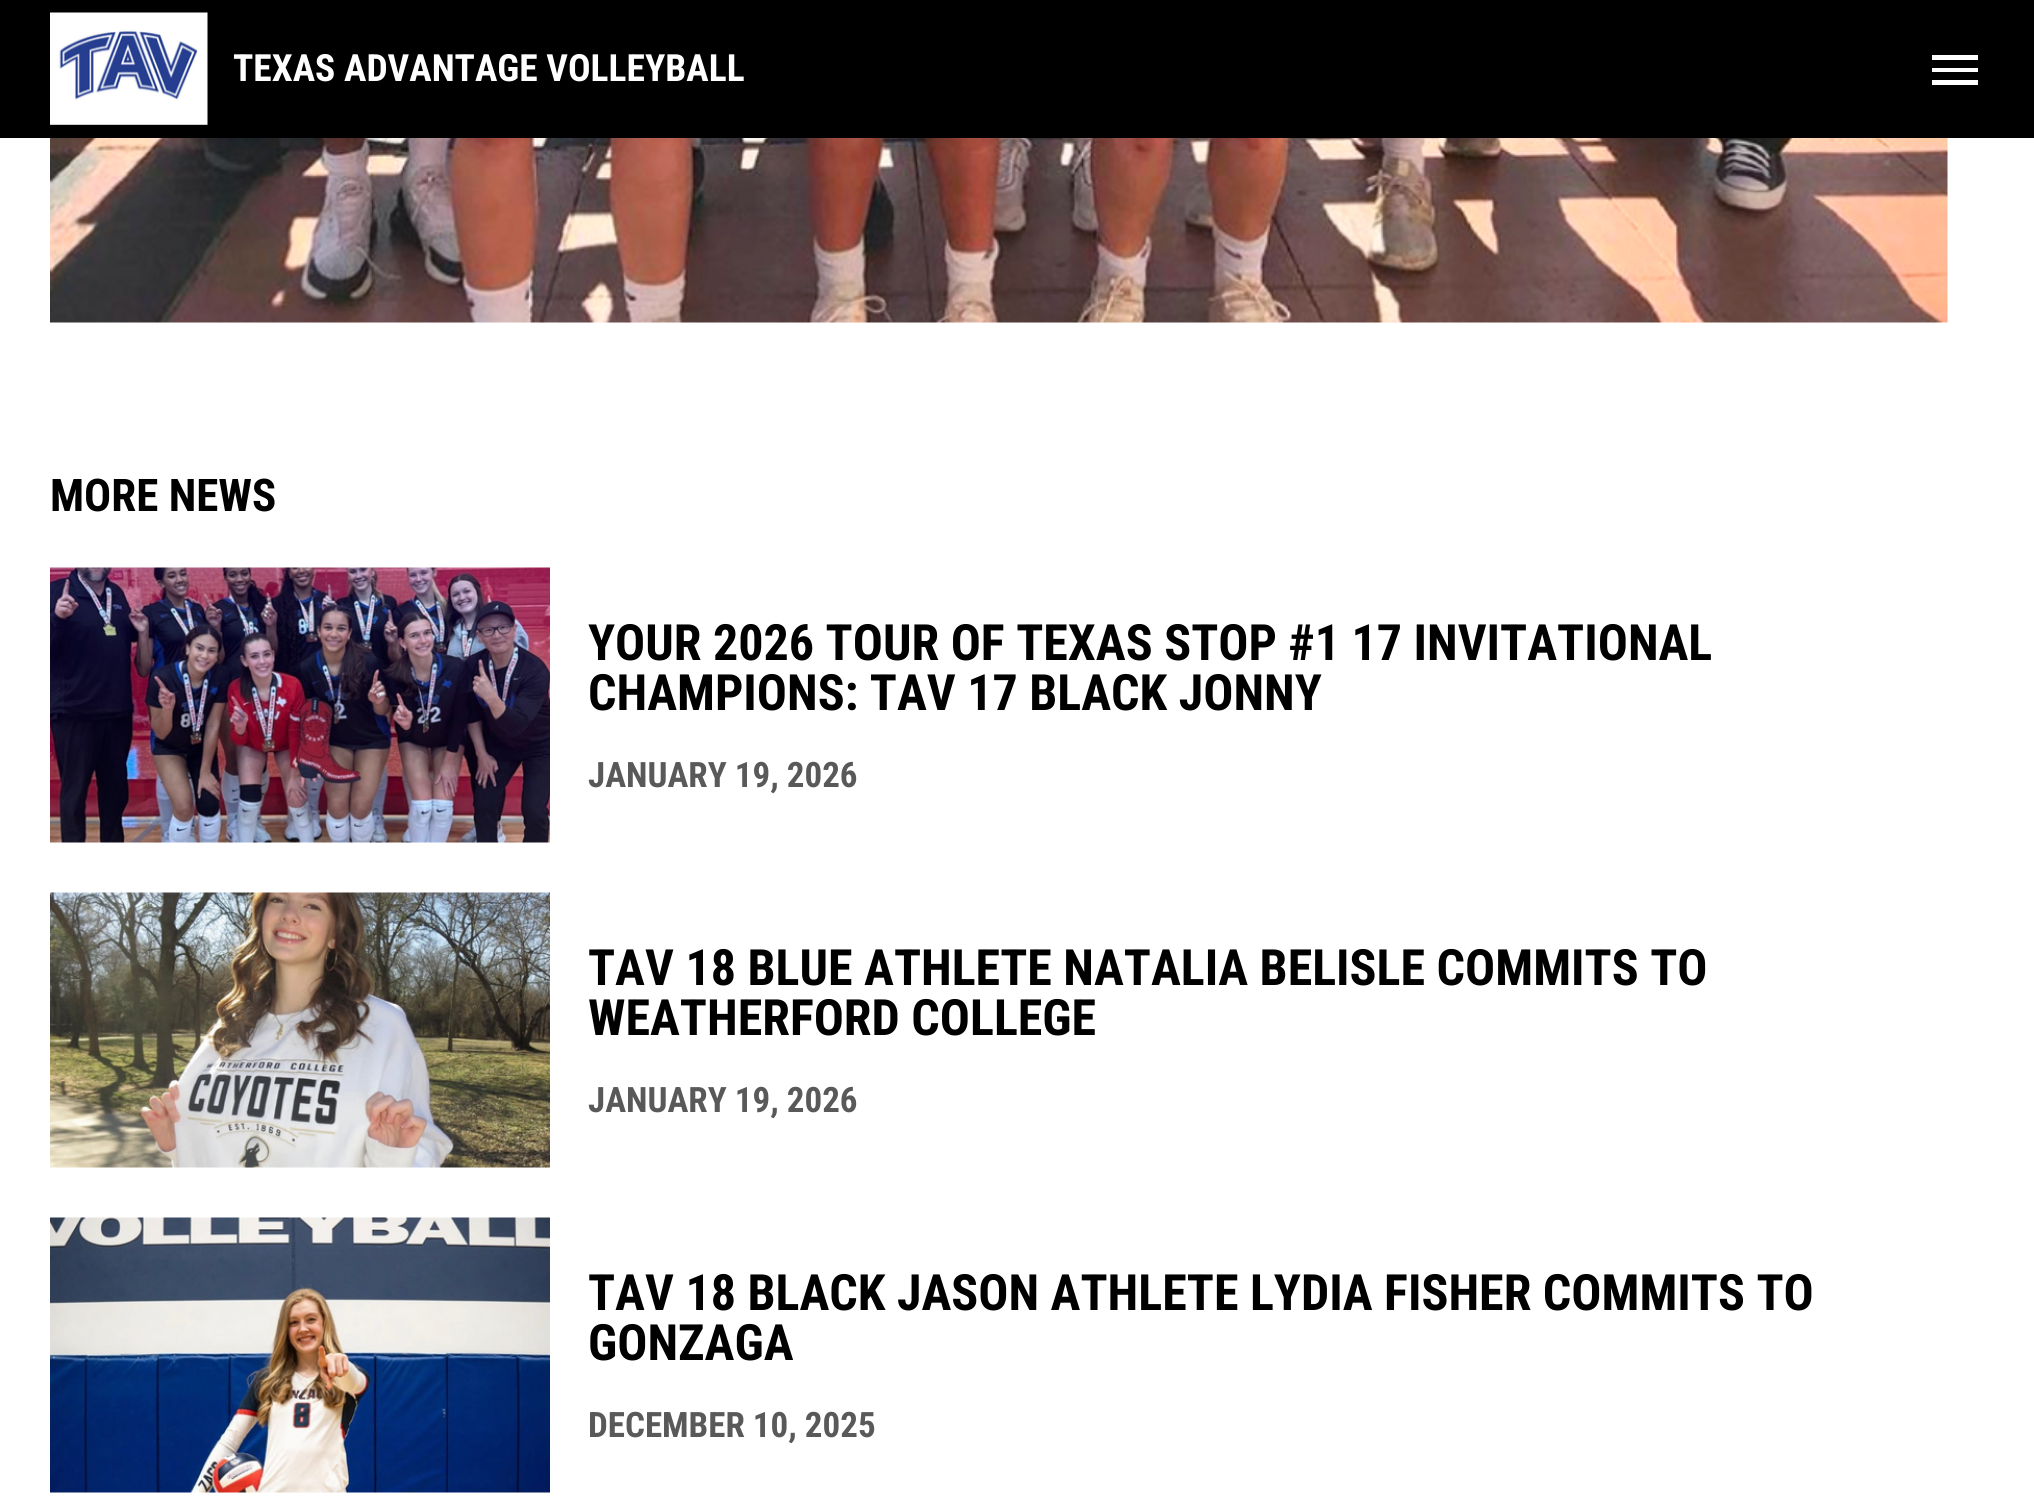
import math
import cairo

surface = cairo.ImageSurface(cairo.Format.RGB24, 2034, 1499)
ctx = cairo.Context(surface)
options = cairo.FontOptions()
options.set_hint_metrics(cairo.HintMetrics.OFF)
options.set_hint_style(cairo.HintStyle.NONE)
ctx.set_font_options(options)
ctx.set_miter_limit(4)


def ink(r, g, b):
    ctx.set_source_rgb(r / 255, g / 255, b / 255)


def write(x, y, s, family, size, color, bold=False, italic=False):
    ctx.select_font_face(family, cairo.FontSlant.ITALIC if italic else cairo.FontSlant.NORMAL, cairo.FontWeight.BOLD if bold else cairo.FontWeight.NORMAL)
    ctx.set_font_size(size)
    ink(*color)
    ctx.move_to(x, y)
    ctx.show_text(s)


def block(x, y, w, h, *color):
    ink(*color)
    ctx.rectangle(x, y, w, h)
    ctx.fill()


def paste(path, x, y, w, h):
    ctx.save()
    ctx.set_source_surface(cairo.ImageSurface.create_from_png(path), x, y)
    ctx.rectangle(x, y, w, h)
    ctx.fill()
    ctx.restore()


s1 = dict(family="Roboto Condensed", size=37.5, color=(255, 255, 255), bold=True)
s2 = dict(family="Roboto Condensed", size=45, color=(0, 0, 0), bold=True)
s3 = dict(family="Roboto Condensed", size=50, color=(0, 0, 0), bold=True)
s4 = dict(family="Roboto Condensed", size=35, color=(89, 89, 89), bold=True)

ink(255, 255, 255)
ctx.paint()
block(0, 0, 2034, 138, 0, 0, 0)
paste("pic1.png", 50, 12, 158, 113)
write(233, 81, "TEXAS ADVANTAGE VOLLEYBALL", **s1)
ctx.new_path()
ctx.move_to(1932, 55)
ctx.line_to(1978, 55)
ctx.line_to(1978, 60)
ctx.line_to(1932, 60)
ctx.close_path()
ctx.move_to(1932, 72)
ctx.line_to(1932, 68)
ctx.line_to(1978, 68)
ctx.line_to(1978, 72)
ctx.close_path()
ctx.move_to(1932, 85)
ctx.line_to(1932, 80)
ctx.line_to(1978, 80)
ctx.line_to(1978, 85)
ctx.close_path()
ctx.fill()
paste("pic2.png", 50, 138, 1898, 185)
write(50, 511, "MORE NEWS", **s2)
paste("pic3.png", 50, 567, 500, 276)
write(588, 660, "YOUR 2026 TOUR OF TEXAS STOP #1 17 INVITATIONAL", **s3)
write(588, 710, "CHAMPIONS: TAV 17 BLACK JONNY", **s3)
write(588, 787, "JANUARY 19, 2026", **s4)
paste("pic4.png", 50, 892, 500, 276)
write(588, 985, "TAV 18 BLUE ATHLETE NATALIA BELISLE COMMITS TO", **s3)
write(588, 1035, "WEATHERFORD COLLEGE", **s3)
write(588, 1112, "JANUARY 19, 2026", **s4)
paste("pic5.png", 50, 1217, 500, 276)
write(588, 1310, "TAV 18 BLACK JASON ATHLETE LYDIA FISHER COMMITS TO", **s3)
write(588, 1360, "GONZAGA", **s3)
write(588, 1437, "DECEMBER 10, 2025", **s4)
surface.write_to_png("screenshot.png")
